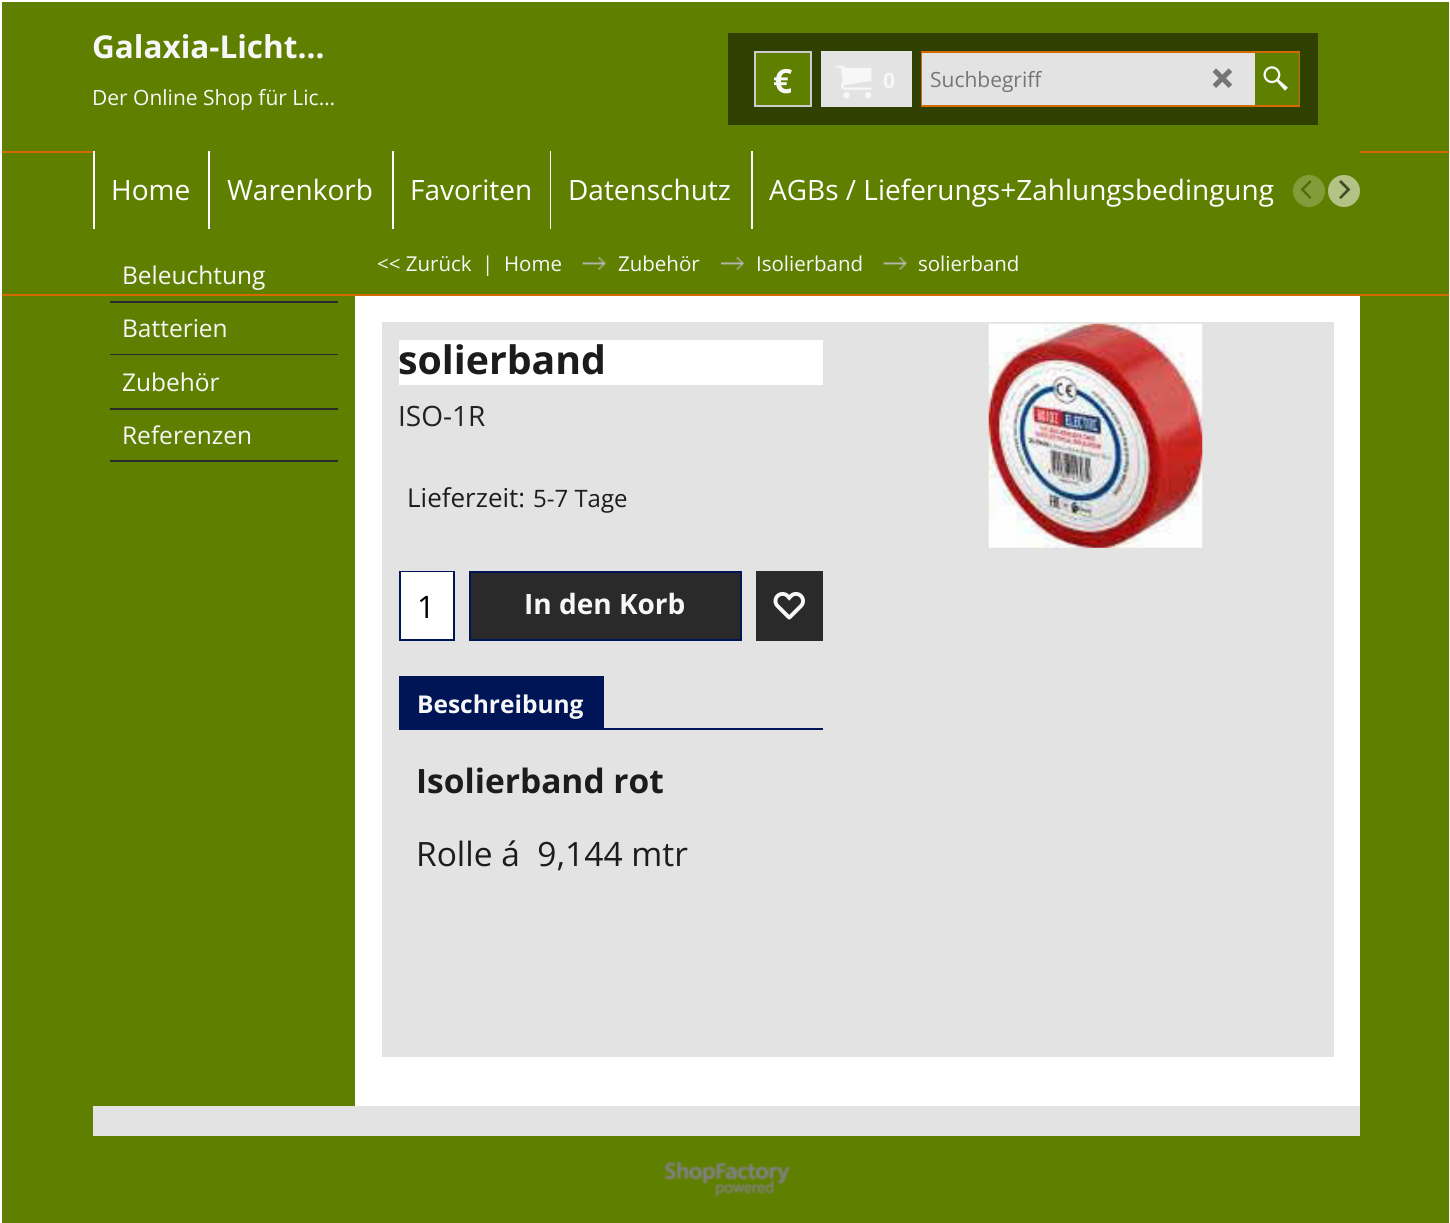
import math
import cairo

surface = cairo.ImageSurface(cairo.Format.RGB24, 1450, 1223)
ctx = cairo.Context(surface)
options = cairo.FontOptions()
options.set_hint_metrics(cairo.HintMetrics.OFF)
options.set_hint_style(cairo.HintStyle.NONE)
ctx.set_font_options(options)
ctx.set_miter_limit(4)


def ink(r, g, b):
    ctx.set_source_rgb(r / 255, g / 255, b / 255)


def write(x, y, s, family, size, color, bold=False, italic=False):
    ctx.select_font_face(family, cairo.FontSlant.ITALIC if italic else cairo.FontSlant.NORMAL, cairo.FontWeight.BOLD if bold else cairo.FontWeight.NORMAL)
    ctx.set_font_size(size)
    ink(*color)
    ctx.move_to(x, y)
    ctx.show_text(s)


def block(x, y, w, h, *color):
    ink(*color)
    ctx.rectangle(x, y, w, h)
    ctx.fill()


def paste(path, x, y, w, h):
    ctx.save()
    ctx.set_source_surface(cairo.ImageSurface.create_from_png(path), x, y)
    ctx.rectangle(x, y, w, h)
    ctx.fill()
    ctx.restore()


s1 = dict(family="Open Sans", size=31.5, color=(247, 247, 247), bold=True)
s2 = dict(family="Open Sans", size=21, color=(247, 247, 247))
s3 = dict(family="Open Sans", size=33.5, color=(247, 247, 247), bold=True)
s4 = dict(family="Open Sans", size=21, color=(247, 247, 247), bold=True)
s5 = dict(family="Open Sans", size=21, color=(117, 117, 117))
s6 = dict(family="Open Sans", size=28, color=(255, 255, 255))
s7 = dict(family="Open Sans", size=24.5, color=(247, 247, 247))
s8 = dict(family="Open Sans", size=20.5, color=(247, 247, 247))
s9 = dict(family="Open Sans", size=39.25, color=(28, 28, 28), bold=True)
s10 = dict(family="Open Sans", size=28, color=(34, 34, 34))
s11 = dict(family="Open Sans", size=26, color=(28, 28, 28))
s12 = dict(family="Open Sans", size=24, color=(28, 28, 28))
s13 = dict(family="Open Sans", size=31, color=(0, 0, 0))
s14 = dict(family="Open Sans", size=28, color=(247, 247, 247), bold=True)
s15 = dict(family="Open Sans", size=24.5, color=(247, 247, 247), bold=True)
s16 = dict(family="Open Sans", size=33.5, color=(28, 28, 28), bold=True)
s17 = dict(family="Open Sans", size=33.5, color=(28, 28, 28))

ink(95, 127, 0)
ctx.paint()
ctx.rectangle(1, 1, 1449, 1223)
ink(255, 255, 255)
ctx.stroke()
write(92, 58, "Galaxia-Licht…", **s1)
write(92, 105, "Der Online Shop für Lic…", **s2)
block(728, 33, 590, 92, 48, 64, 0)
ink(95, 127, 0)
ctx.rectangle(755, 52, 56, 54)
ctx.fill_preserve()
ink(204, 204, 204)
ctx.stroke()
write(773, 93, "€", **s3)
block(821, 51, 91, 56, 227, 227, 227)
paste("pic1.png", 836, 65, 36, 34)
write(883, 88, "0", **s4)
block(921, 51, 379, 56, 212, 105, 0)
block(922, 53, 333, 52, 227, 227, 227)
write(930, 87, "Suchbegriff", **s5)
paste("pic2.png", 1212, 68, 20, 20)
block(1255, 53, 44, 52, 95, 127, 0)
paste("pic3.png", 1263, 66, 25, 25)
ctx.save()
ctx.rectangle(2, 2, 1447, 1221)
ctx.clip()
ctx.rectangle(-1, 230, 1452, 65)
ink(212, 105, 0)
ctx.stroke()
ctx.restore()
block(2, 229, 1447, 2, 95, 127, 0)
block(2, 151, 1447, 2, 212, 105, 0)
block(95, 151, 1265, 2, 95, 127, 0)
block(93, 151, 2, 78, 255, 255, 255)
write(111, 200, "Home", **s6)
block(208, 151, 2, 78, 255, 255, 255)
write(227, 200, "Warenkorb", **s6)
block(392, 151, 2, 78, 255, 255, 255)
write(410, 200, "Favoriten", **s6)
block(550, 151, 1, 78, 255, 255, 255)
write(568, 200, "Datenschutz", **s6)
block(751, 151, 2, 78, 255, 255, 255)
write(769, 200, "AGBs / Lieferungs+Zahlungsbedingung", **s6)
ink(131, 156, 58)
ctx.new_path()
ctx.arc(1309, 191, 16, 0, 2 * math.pi)
ctx.fill()
ink(82, 104, 15)
ctx.new_path()
ctx.move_to(1300.5, 189.5)
ctx.line_to(1310, 199)
ctx.line_to(1311.5, 197.5)
ctx.line_to(1304, 189.5)
ctx.line_to(1311.5, 182)
ctx.line_to(1310, 180)
ctx.close_path()
ctx.fill()
ink(179, 195, 134)
ctx.arc(1344, 191, 16, 0, 2 * math.pi)
ctx.fill()
ink(64, 74, 36)
ctx.new_path()
ctx.move_to(1350.5, 189.5)
ctx.line_to(1341, 180)
ctx.line_to(1339, 182)
ctx.line_to(1346.5, 189.5)
ctx.line_to(1339, 197.5)
ctx.line_to(1341, 199)
ctx.close_path()
ctx.fill()
block(110, 301, 228, 2, 42, 42, 42)
write(122, 284, "Beleuchtung", **s7)
block(110, 354, 228, 1, 42, 42, 42)
write(122, 337, "Batterien", **s7)
block(110, 408, 228, 2, 42, 42, 42)
write(122, 391, "Zubehör", **s7)
block(110, 460, 228, 2, 42, 42, 42)
write(122, 444, "Referenzen", **s7)
block(355, 296, 1005, 810, 255, 255, 255)
write(377, 271, "<< Zurück", **s8)
write(482, 271, "|", **s8)
write(504, 271, "Home", **s8)
paste("pic4.png", 582, 257, 24, 13)
write(618, 271, "Zubehör", **s8)
paste("pic5.png", 721, 257, 23, 13)
write(756, 271, "Isolierband", **s8)
paste("pic6.png", 883, 257, 24, 13)
write(918, 271, "solierband", **s8)
block(382, 322, 952, 735, 227, 227, 227)
block(399, 340, 424, 45, 255, 255, 255)
write(398, 374, "solierband", **s9)
write(398, 426, "ISO-1R", **s10)
write(407, 507, "Lieferzeit:", **s11)
write(533, 507, "5-7 Tage", **s12)
ctx.rectangle(400, 572, 54, 68)
ink(0, 21, 85)
ctx.stroke()
block(401, 572, 52, 67, 255, 255, 255)
write(417, 618, "1", **s13)
ink(42, 42, 42)
ctx.rectangle(470, 572, 271, 68)
ctx.fill_preserve()
ink(0, 21, 85)
ctx.stroke()
write(524, 614, "In den Korb", **s14)
block(756, 571, 67, 70, 42, 42, 42)
paste("pic7.png", 773, 591, 32, 29)
block(399, 676, 205, 54, 0, 21, 85)
write(417, 713, "Beschreibung", **s15)
block(604, 728, 219, 2, 0, 21, 85)
write(416, 793, "Isolierband rot", **s16)
write(416, 866, "Rolle á  9,144 mtr", **s17)
paste("pic8.png", 988, 323, 215, 225)
block(93, 1106, 1267, 30, 227, 227, 227)
paste("pic9.png", 664, 1162, 126, 35)
surface.write_to_png("screenshot.png")
